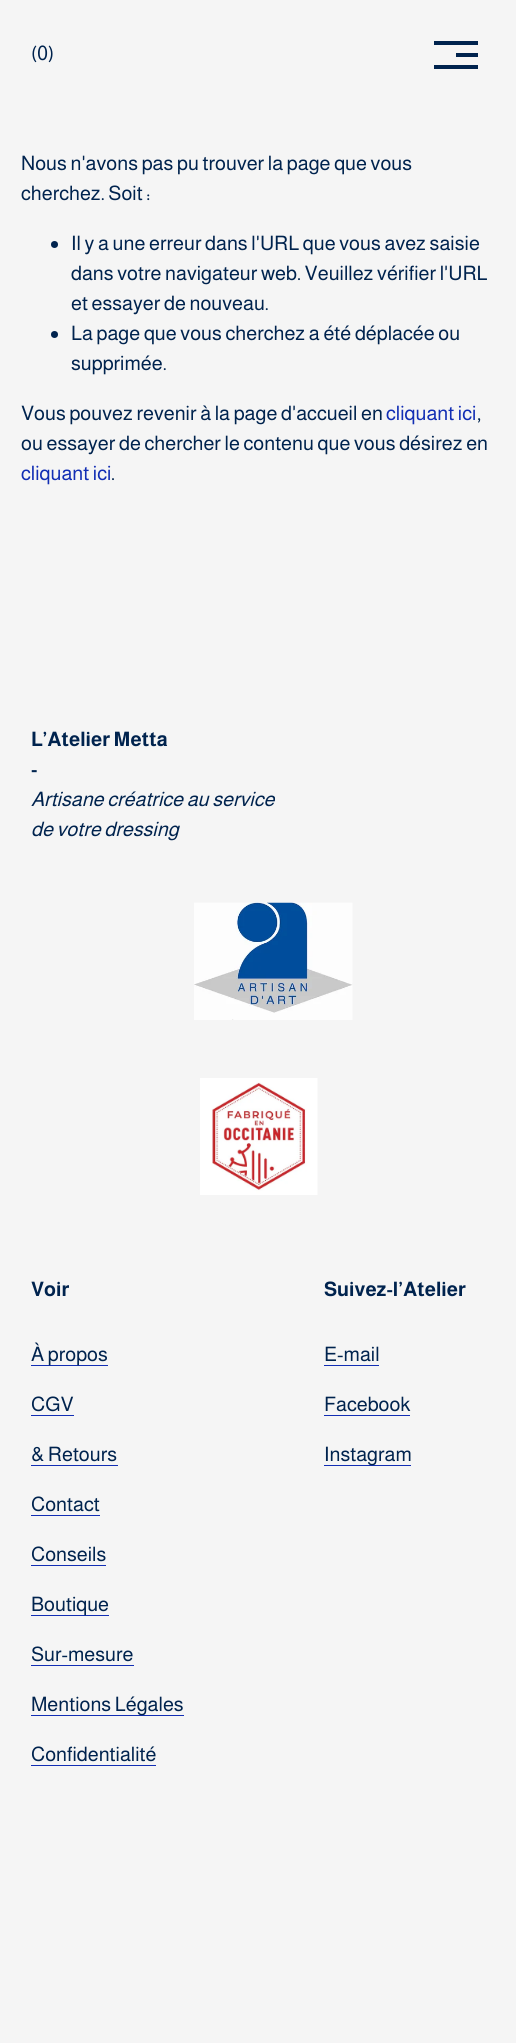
import math
import cairo

surface = cairo.ImageSurface(cairo.Format.RGB24, 516, 2043)
ctx = cairo.Context(surface)
options = cairo.FontOptions()
options.set_hint_metrics(cairo.HintMetrics.OFF)
options.set_hint_style(cairo.HintStyle.NONE)
ctx.set_font_options(options)
ctx.set_miter_limit(4)


def ink(r, g, b):
    ctx.set_source_rgb(r / 255, g / 255, b / 255)


def write(x, y, s, family, size, color, bold=False, italic=False):
    ctx.select_font_face(family, cairo.FontSlant.ITALIC if italic else cairo.FontSlant.NORMAL, cairo.FontWeight.BOLD if bold else cairo.FontWeight.NORMAL)
    ctx.set_font_size(size)
    ink(*color)
    ctx.move_to(x, y)
    ctx.show_text(s)


def block(x, y, w, h, *color):
    ink(*color)
    ctx.rectangle(x, y, w, h)
    ctx.fill()


def paste(path, x, y, w, h):
    ctx.save()
    ctx.set_source_surface(cairo.ImageSurface.create_from_png(path), x, y)
    ctx.rectangle(x, y, w, h)
    ctx.fill()
    ctx.restore()


s1 = dict(family="Almarai", size=20, color=(0, 35, 78))
s2 = dict(family="Almarai", size=20, color=(18, 46, 180))
s3 = dict(family="Almarai", size=20, color=(0, 35, 78), bold=True)
s4 = dict(family="Almarai", size=20, color=(0, 35, 78), italic=True)

ink(245, 245, 245)
ctx.paint()
write(31, 60, "(0)", **s1)
block(434, 41, 44, 4, 0, 35, 78)
block(456, 53, 22, 4, 0, 35, 78)
block(434, 65, 44, 4, 0, 35, 78)
write(21, 170, "Nous n'avons pas pu trouver la page que vous", **s1)
write(21, 200, "cherchez. Soit :", **s1)
ctx.new_path()
ctx.arc(54.5, 244.5, 3.5, 0, 2 * math.pi)
ctx.fill()
write(71, 250, "Il y a une erreur dans l'URL que vous avez saisie", **s1)
write(71, 280, "dans votre navigateur web. Veuillez vérifier l'URL", **s1)
write(71, 310, "et essayer de nouveau.", **s1)
ctx.new_path()
ctx.arc(54.5, 334.5, 3.5, 0, 2 * math.pi)
ctx.fill()
write(71, 340, "La page que vous cherchez a été déplacée ou", **s1)
write(71, 370, "supprimée.", **s1)
write(21, 420, "Vous pouvez revenir à la page d'accueil en", **s1)
write(386, 420, "cliquant ici", **s2)
write(477, 420, ",", **s1)
write(21, 450, "ou essayer de chercher le contenu que vous désirez en", **s1)
write(21, 480, "cliquant ici", **s2)
write(111, 480, ".", **s1)
write(31, 746, "L’Atelier Metta", **s3)
write(31, 776, "-", **s3)
write(31, 806, "Artisane créatrice au service", **s4)
write(31, 836, "de votre dressing", **s4)
paste("pic1.png", 194, 902, 159, 118)
paste("pic2.png", 200, 1078, 118, 117)
write(31, 1296, "Voir", **s3)
write(324, 1296, "Suivez-l’Atelier", **s3)
block(31, 1365, 77, 1, 18, 46, 180)
write(31, 1361, "À propos", **s1)
write(31, 1411, "CGV", **s1)
block(31, 1415, 43, 1, 18, 46, 180)
write(31, 1461, "& Retours", **s1)
block(31, 1465, 87, 1, 18, 46, 180)
write(31, 1511, "Contact", **s1)
block(31, 1515, 69, 1, 18, 46, 180)
write(31, 1561, "Conseils", **s1)
block(31, 1565, 75, 1, 18, 46, 180)
block(31, 1615, 78, 1, 18, 46, 180)
write(31, 1611, "Boutique", **s1)
write(31, 1661, "Sur-mesure", **s1)
block(31, 1665, 103, 1, 18, 46, 180)
block(31, 1715, 153, 1, 18, 46, 180)
write(31, 1711, "Mentions Légales", **s1)
write(31, 1761, "Confidentialité", **s1)
block(31, 1765, 125, 1, 18, 46, 180)
write(324, 1361, "E-mail", **s1)
block(324, 1365, 55, 1, 18, 46, 180)
write(324, 1411, "Facebook", **s1)
block(324, 1415, 86, 1, 18, 46, 180)
block(324, 1465, 87, 1, 18, 46, 180)
write(324, 1461, "Instagram", **s1)
surface.write_to_png("screenshot.png")
